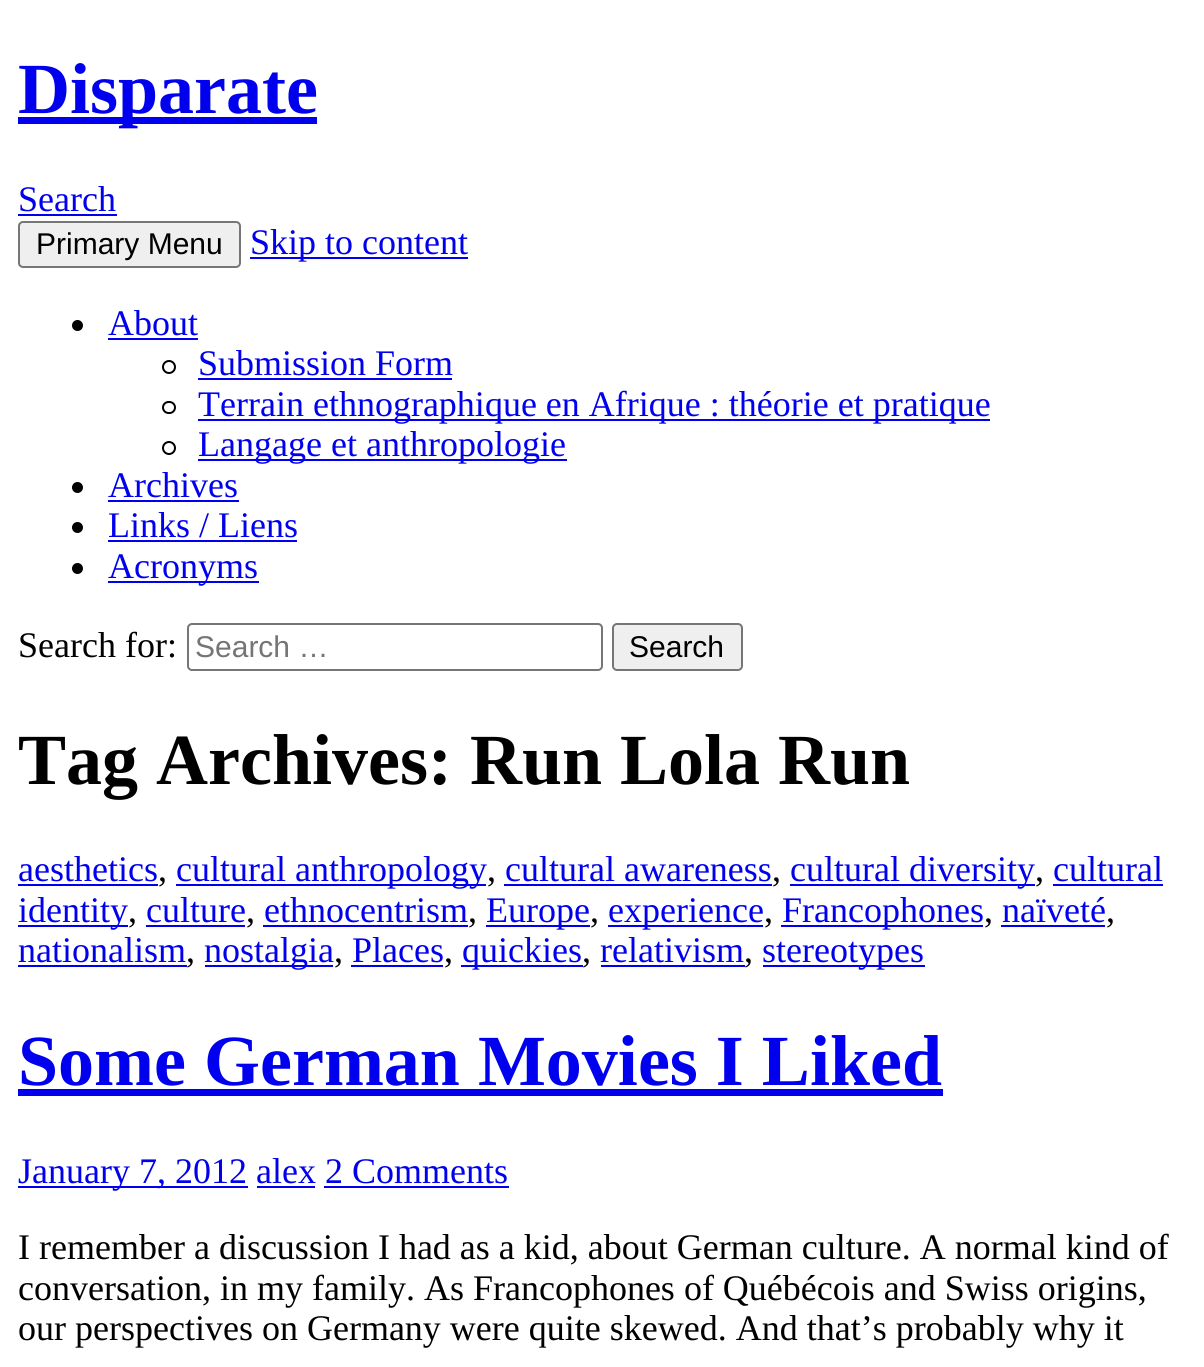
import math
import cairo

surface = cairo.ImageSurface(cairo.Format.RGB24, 1204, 1367)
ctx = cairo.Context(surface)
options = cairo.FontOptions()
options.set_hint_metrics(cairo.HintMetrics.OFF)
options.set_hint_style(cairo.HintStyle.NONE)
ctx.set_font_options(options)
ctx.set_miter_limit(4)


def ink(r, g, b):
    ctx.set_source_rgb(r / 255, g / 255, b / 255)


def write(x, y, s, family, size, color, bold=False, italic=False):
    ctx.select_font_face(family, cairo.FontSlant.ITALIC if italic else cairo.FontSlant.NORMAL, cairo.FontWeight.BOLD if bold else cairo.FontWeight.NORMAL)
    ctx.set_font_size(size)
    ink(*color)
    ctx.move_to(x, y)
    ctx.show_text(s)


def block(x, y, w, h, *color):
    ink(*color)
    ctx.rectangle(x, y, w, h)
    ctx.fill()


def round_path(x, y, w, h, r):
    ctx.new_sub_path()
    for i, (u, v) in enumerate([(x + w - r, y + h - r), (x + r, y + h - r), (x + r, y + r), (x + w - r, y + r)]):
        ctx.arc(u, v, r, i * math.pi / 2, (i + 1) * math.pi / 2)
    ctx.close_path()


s1 = dict(family="Liberation Serif", size=72, color=(0, 0, 238), bold=True)
s2 = dict(family="Liberation Serif", size=36, color=(0, 0, 238))
s3 = dict(family="Liberation Sans", size=30, color=(0, 0, 0))
s4 = dict(family="Liberation Serif", size=36, color=(0, 0, 0))
s5 = dict(family="Liberation Sans", size=30, color=(117, 117, 117))
s6 = dict(family="Liberation Serif", size=72, color=(0, 0, 0), bold=True)

ink(255, 255, 255)
ctx.paint()
block(18, 117, 299, 7, 0, 0, 238)
write(18, 113, "Disparate", **s1)
write(18, 211, "Search", **s2)
block(18, 214, 99, 2, 0, 0, 238)
ink(239, 239, 239)
round_path(19, 222, 221, 45, 4)
ctx.fill_preserve()
ink(118, 118, 118)
ctx.stroke()
write(36, 254, "Primary Menu", **s3)
block(250, 257, 218, 2, 0, 0, 238)
write(250, 254, "Skip to content", **s2)
ink(0, 0, 0)
ctx.new_path()
ctx.arc(77.5, 325.5, 5.5, 0, 2 * math.pi)
ctx.fill()
write(108, 335, "About", **s2)
block(108, 338, 90, 2, 0, 0, 238)
ctx.new_path()
ctx.arc(169, 367, 6, 0, 2 * math.pi)
ink(0, 0, 0)
ctx.stroke()
write(198, 375, "Submission Form", **s2)
block(198, 378, 254, 2, 0, 0, 238)
round_path(163, 402, 12, 11, 5.5)
ink(0, 0, 0)
ctx.stroke()
block(198, 419, 792, 2, 0, 0, 238)
write(198, 416, "Terrain ethnographique en Afrique : théorie et pratique", **s2)
ctx.new_path()
ctx.arc(169, 448, 6, 0, 2 * math.pi)
ink(0, 0, 0)
ctx.stroke()
block(198, 459, 369, 2, 0, 0, 238)
write(198, 456, "Langage et anthropologie", **s2)
ink(0, 0, 0)
ctx.new_path()
ctx.arc(77.5, 487.5, 5.5, 0, 2 * math.pi)
ctx.fill()
write(108, 497, "Archives", **s2)
block(108, 500, 131, 2, 0, 0, 238)
ink(0, 0, 0)
ctx.new_path()
ctx.arc(77.5, 527.5, 5.5, 0, 2 * math.pi)
ctx.fill()
write(108, 537, "Links / Liens", **s2)
block(108, 540, 189, 2, 0, 0, 238)
ink(0, 0, 0)
ctx.new_path()
ctx.arc(77.5, 568.5, 5.5, 0, 2 * math.pi)
ctx.fill()
block(108, 581, 151, 2, 0, 0, 238)
write(108, 578, "Acronyms", **s2)
write(18, 657, "Search for:", **s4)
round_path(188, 624, 414, 46, 4)
ink(118, 118, 118)
ctx.stroke()
write(195, 657, "Search …", **s5)
ink(239, 239, 239)
round_path(613, 624, 129, 46, 4)
ctx.fill_preserve()
ink(118, 118, 118)
ctx.stroke()
write(629, 657, "Search", **s3)
write(18, 784, "Tag Archives: Run Lola Run", **s6)
write(18, 881, "aesthetics", **s2)
write(158, 881, ",", **s4)
block(18, 884, 140, 2, 0, 0, 238)
block(176, 884, 310, 2, 0, 0, 238)
write(176, 881, "cultural anthropology", **s2)
write(487, 881, ",", **s4)
write(505, 881, "cultural awareness", **s2)
write(772, 881, ",", **s4)
block(504, 884, 268, 2, 0, 0, 238)
block(790, 884, 245, 2, 0, 0, 238)
write(790, 881, "cultural diversity", **s2)
write(1035, 881, ",", **s4)
block(1053, 884, 110, 2, 0, 0, 238)
write(1053, 881, "cultural", **s2)
block(18, 925, 110, 2, 0, 0, 238)
write(18, 922, "identity", **s2)
write(128, 922, ",", **s4)
write(146, 922, "culture", **s2)
write(246, 922, ",", **s4)
block(146, 925, 99, 2, 0, 0, 238)
write(264, 922, "ethnocentrism", **s2)
write(468, 922, ",", **s4)
block(263, 925, 205, 2, 0, 0, 238)
block(486, 925, 104, 2, 0, 0, 238)
write(486, 922, "Europe", **s2)
write(590, 922, ",", **s4)
block(608, 925, 155, 2, 0, 0, 238)
write(608, 922, "experience", **s2)
write(764, 922, ",", **s4)
block(781, 925, 202, 2, 0, 0, 238)
write(782, 922, "Francophones", **s2)
write(984, 922, ",", **s4)
write(1002, 922, "naïveté", **s2)
write(1106, 922, ",", **s4)
block(1001, 925, 104, 2, 0, 0, 238)
write(18, 962, "nationalism", **s2)
write(186, 962, ",", **s4)
block(18, 965, 169, 2, 0, 0, 238)
block(205, 965, 128, 2, 0, 0, 238)
write(204, 962, "nostalgia", **s2)
write(334, 962, ",", **s4)
write(352, 962, "Places", **s2)
write(444, 962, ",", **s4)
block(351, 965, 92, 2, 0, 0, 238)
block(461, 965, 122, 2, 0, 0, 238)
write(462, 962, "quickies", **s2)
write(582, 962, ",", **s4)
write(600, 962, "relativism", **s2)
write(744, 962, ",", **s4)
block(601, 965, 144, 2, 0, 0, 238)
block(763, 965, 162, 2, 0, 0, 238)
write(762, 962, "stereotypes", **s2)
write(18, 1085, "Some German Movies I Liked", **s1)
block(18, 1089, 925, 7, 0, 0, 238)
block(18, 1186, 230, 2, 0, 0, 238)
write(18, 1183, "January 7, 2012 alex 2 Comments", **s2)
block(257, 1186, 58, 2, 0, 0, 238)
block(324, 1186, 185, 2, 0, 0, 238)
write(18, 1259, "I remember a discussion I had as a kid, about German culture. A normal kind of", **s4)
write(18, 1300, "conversation, in my family. As Francophones of Québécois and Swiss origins,", **s4)
write(18, 1340, "our perspectives on Germany were quite skewed. And that’s probably why it", **s4)
surface.write_to_png("screenshot.png")
